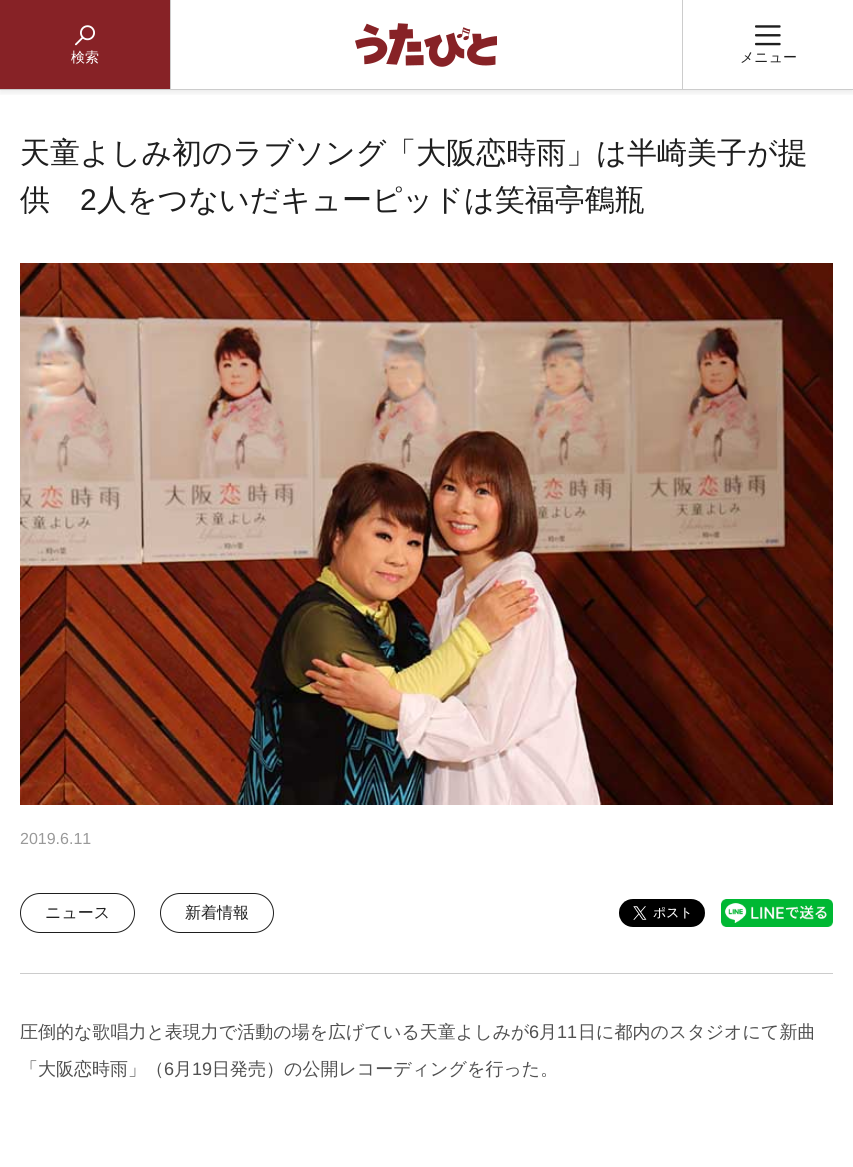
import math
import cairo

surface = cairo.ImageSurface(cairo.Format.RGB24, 853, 1167)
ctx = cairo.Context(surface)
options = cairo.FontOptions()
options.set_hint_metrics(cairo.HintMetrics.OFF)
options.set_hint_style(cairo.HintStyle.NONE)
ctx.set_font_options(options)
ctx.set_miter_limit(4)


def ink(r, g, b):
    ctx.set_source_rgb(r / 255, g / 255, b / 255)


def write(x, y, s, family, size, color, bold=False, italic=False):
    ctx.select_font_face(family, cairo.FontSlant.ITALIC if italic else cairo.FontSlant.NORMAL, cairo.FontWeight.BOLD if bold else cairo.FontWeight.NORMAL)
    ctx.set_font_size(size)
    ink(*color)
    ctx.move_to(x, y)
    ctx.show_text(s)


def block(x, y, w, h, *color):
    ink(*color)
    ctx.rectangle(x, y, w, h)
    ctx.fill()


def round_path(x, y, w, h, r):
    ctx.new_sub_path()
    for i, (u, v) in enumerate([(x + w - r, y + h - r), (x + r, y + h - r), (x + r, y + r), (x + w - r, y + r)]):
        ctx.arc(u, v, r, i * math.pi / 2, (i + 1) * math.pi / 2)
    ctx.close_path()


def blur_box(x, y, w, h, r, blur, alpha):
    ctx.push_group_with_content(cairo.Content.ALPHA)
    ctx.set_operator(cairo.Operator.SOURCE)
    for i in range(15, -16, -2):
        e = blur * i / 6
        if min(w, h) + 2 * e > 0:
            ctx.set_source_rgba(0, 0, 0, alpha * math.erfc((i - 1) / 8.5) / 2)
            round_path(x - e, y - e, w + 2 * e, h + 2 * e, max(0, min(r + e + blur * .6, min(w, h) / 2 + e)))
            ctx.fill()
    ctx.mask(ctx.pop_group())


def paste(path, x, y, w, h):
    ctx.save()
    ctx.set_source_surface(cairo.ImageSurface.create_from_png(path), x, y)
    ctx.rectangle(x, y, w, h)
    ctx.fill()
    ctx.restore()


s1 = dict(family="WenQuanYi Zen Hei Medium", size=14, color=(255, 255, 255))
s2 = dict(family="WenQuanYi Zen Hei Medium", size=14, color=(30, 30, 30))
s3 = dict(family="WenQuanYi Zen Hei Medium", size=30, color=(30, 30, 30))
s4 = dict(family="Liberation Sans", size=30, color=(30, 30, 30))
s5 = dict(family="Liberation Sans", size=16, color=(153, 153, 153))
s6 = dict(family="WenQuanYi Zen Hei Medium", size=16, color=(30, 30, 30))
s7 = dict(family="WenQuanYi Zen Hei Medium", size=18, color=(80, 80, 80))
s8 = dict(family="Liberation Sans", size=18, color=(80, 80, 80))

ink(255, 255, 255)
ctx.paint()
ctx.save()
ctx.rectangle(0, 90, 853, 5)
ctx.clip()
ink(6, 0, 1)
blur_box(0, 2, 853, 90, 0, 4, 0.1)
ctx.restore()
block(0, 0, 170, 89, 135, 34, 38)
block(170, 0, 1, 90, 204, 204, 204)
block(0, 89, 853, 1, 204, 204, 204)
paste("pic1.png", 75, 25, 20, 21)
write(71, 62, "検索", **s1)
paste("pic2.png", 355, 23, 142, 44)
block(682, 0, 1, 90, 204, 204, 204)
paste("pic3.png", 755, 25, 26, 21)
write(740, 62, "メニュー", **s2)
write(20, 163, "天童よしみ初のラブソング「大阪恋時雨」は半崎美子が提", **s3)
write(20, 210, "供", **s3)
write(80, 210, "2", **s4)
write(97, 210, "人をつないだキューピッドは笑福亭鶴瓶", **s3)
paste("pic4.png", 20, 263, 813, 542)
write(20, 844, "2019.6.11", **s5)
block(20, 973, 813, 1, 204, 204, 204)
round_path(20.5, 893.5, 114, 39, 19.5)
ink(30, 30, 30)
ctx.set_line_width(1)
ctx.stroke()
write(45, 918, "ニュース", **s6)
round_path(160.5, 893.5, 113, 39, 19.5)
ctx.stroke()
write(185, 918, "新着情報", **s6)
paste("pic5.png", 619, 899, 86, 28)
paste("pic6.png", 721, 899, 112, 28)
write(20, 1038, "圧倒的な歌唱力と表現力で活動の場を広げている天童よしみが", **s7)
write(529, 1038, "6", **s8)
write(539, 1038, "月", **s7)
write(557, 1038, "11", **s8)
write(578, 1038, "日に都内のスタジオにて新曲", **s7)
write(20, 1075, "「大阪恋時雨」（", **s7)
write(164, 1075, "6", **s8)
write(174, 1075, "月", **s7)
write(192, 1075, "19", **s8)
write(212, 1075, "日発売）の公開レコーディングを行った。", **s7)
surface.write_to_png("screenshot.png")
